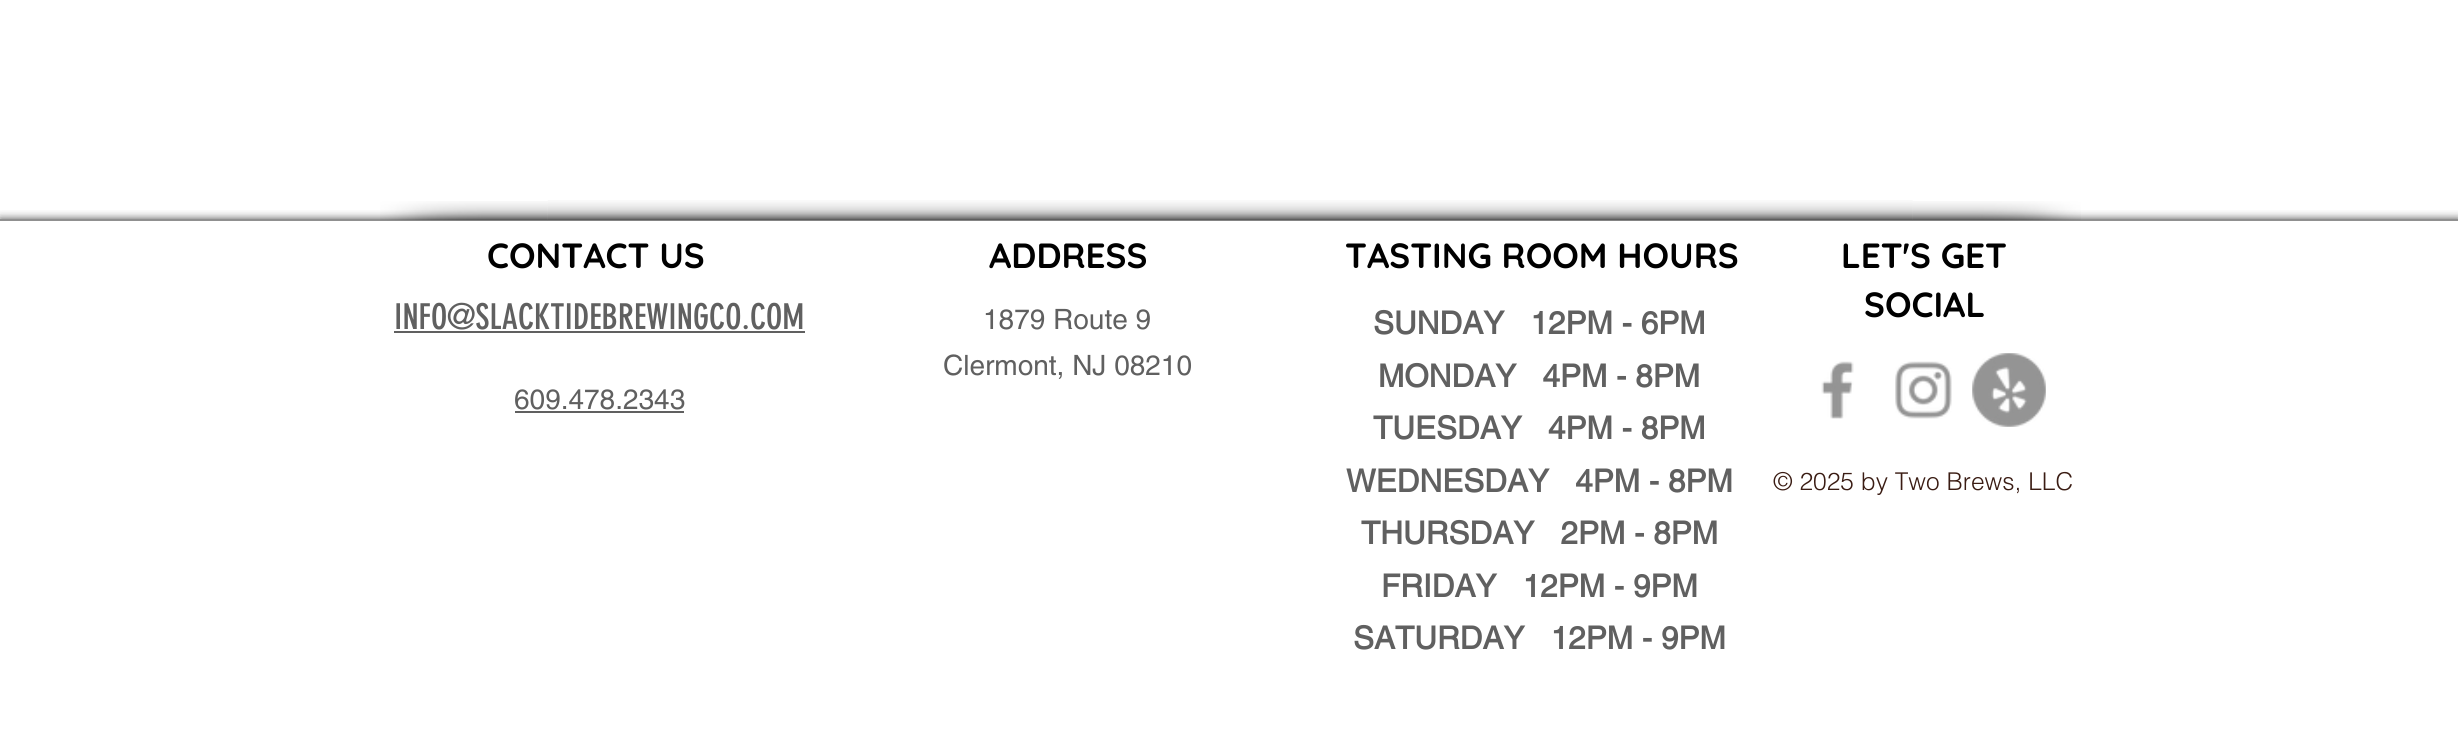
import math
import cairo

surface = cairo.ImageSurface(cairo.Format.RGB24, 2458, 749)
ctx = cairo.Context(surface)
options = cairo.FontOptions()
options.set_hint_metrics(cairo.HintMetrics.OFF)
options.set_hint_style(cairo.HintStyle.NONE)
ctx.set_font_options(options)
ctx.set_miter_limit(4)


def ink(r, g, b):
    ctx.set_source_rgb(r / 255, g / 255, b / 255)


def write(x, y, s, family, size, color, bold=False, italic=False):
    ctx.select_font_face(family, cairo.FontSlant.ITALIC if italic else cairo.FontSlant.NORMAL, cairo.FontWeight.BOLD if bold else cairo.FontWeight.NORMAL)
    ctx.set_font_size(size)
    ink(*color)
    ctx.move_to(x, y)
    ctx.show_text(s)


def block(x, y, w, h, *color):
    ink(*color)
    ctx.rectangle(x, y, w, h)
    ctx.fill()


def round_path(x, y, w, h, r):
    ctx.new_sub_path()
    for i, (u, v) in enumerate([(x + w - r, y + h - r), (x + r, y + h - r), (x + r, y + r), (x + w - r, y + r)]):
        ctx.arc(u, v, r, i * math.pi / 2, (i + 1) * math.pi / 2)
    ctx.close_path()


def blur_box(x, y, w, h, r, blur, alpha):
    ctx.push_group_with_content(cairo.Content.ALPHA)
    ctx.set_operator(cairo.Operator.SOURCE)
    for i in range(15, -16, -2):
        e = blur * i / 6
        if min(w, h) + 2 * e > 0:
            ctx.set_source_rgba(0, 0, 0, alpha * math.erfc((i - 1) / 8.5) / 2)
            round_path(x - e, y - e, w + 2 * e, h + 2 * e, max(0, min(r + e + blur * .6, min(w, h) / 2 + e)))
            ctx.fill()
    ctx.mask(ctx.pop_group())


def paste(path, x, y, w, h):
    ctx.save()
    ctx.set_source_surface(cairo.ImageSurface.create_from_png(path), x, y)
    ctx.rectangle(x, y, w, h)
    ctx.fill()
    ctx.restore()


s1 = dict(family="Quicksand", size=35, color=(0, 0, 0), bold=True)
s2 = dict(family="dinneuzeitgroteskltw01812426", size=35, color=(96, 96, 96))
s3 = dict(family="helvetica", size=28, color=(96, 96, 96))
s4 = dict(family="helvetica", size=31.5, color=(96, 96, 96), bold=True)
s5 = dict(family="helvetica Light", size=24.5, color=(58, 28, 19))

ink(255, 255, 255)
ctx.paint()
ctx.save()
ctx.rectangle(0, 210, 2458, 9)
ctx.clip()
ink(0, 0, 0)
blur_box(0, 219, 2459, 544, 0, 4.5, 0.7)
ctx.restore()
block(0, 219, 2458, 2, 144, 144, 144)
paste("pic1.png", 380, 201, 168, 20)
paste("pic2.png", 547, 200, 1366, 21)
paste("pic3.png", 1912, 201, 169, 20)
write(487, 268, "CONTACT US", **s1)
write(989, 268, "ADDRESS", **s1)
write(1345, 268, "TASTING ROOM HOURS", **s1)
write(1841, 268, "LET'S GET", **s1)
write(1864, 317, "SOCIAL", **s1)
write(394, 329, "INFO@SLACKTIDEBREWINGCO.COM", **s2)
block(394, 331, 411, 2, 96, 96, 96)
write(514, 409, "609.478.2343", **s3)
block(515, 411, 169, 2, 96, 96, 96)
write(983, 329, "1879 Route 9", **s3)
write(943, 375, "Clermont, NJ 08210", **s3)
write(1373, 334, "SUNDAY   12PM - 6PM", **s4)
write(1378, 387, "MONDAY   4PM - 8PM", **s4)
write(1373, 439, "TUESDAY   4PM - 8PM", **s4)
write(1346, 492, "WEDNESDAY   4PM - 8PM", **s4)
write(1361, 544, "THURSDAY   2PM - 8PM", **s4)
write(1381, 597, "FRIDAY   12PM - 9PM", **s4)
write(1353, 649, "SATURDAY   12PM - 9PM", **s4)
paste("pic4.png", 1821, 361, 33, 58)
paste("pic5.png", 1895, 361, 57, 58)
paste("pic6.png", 1972, 353, 74, 74)
write(1773, 490, "© 2025 by Two Brews, LLC", **s5)
surface.write_to_png("screenshot.png")
